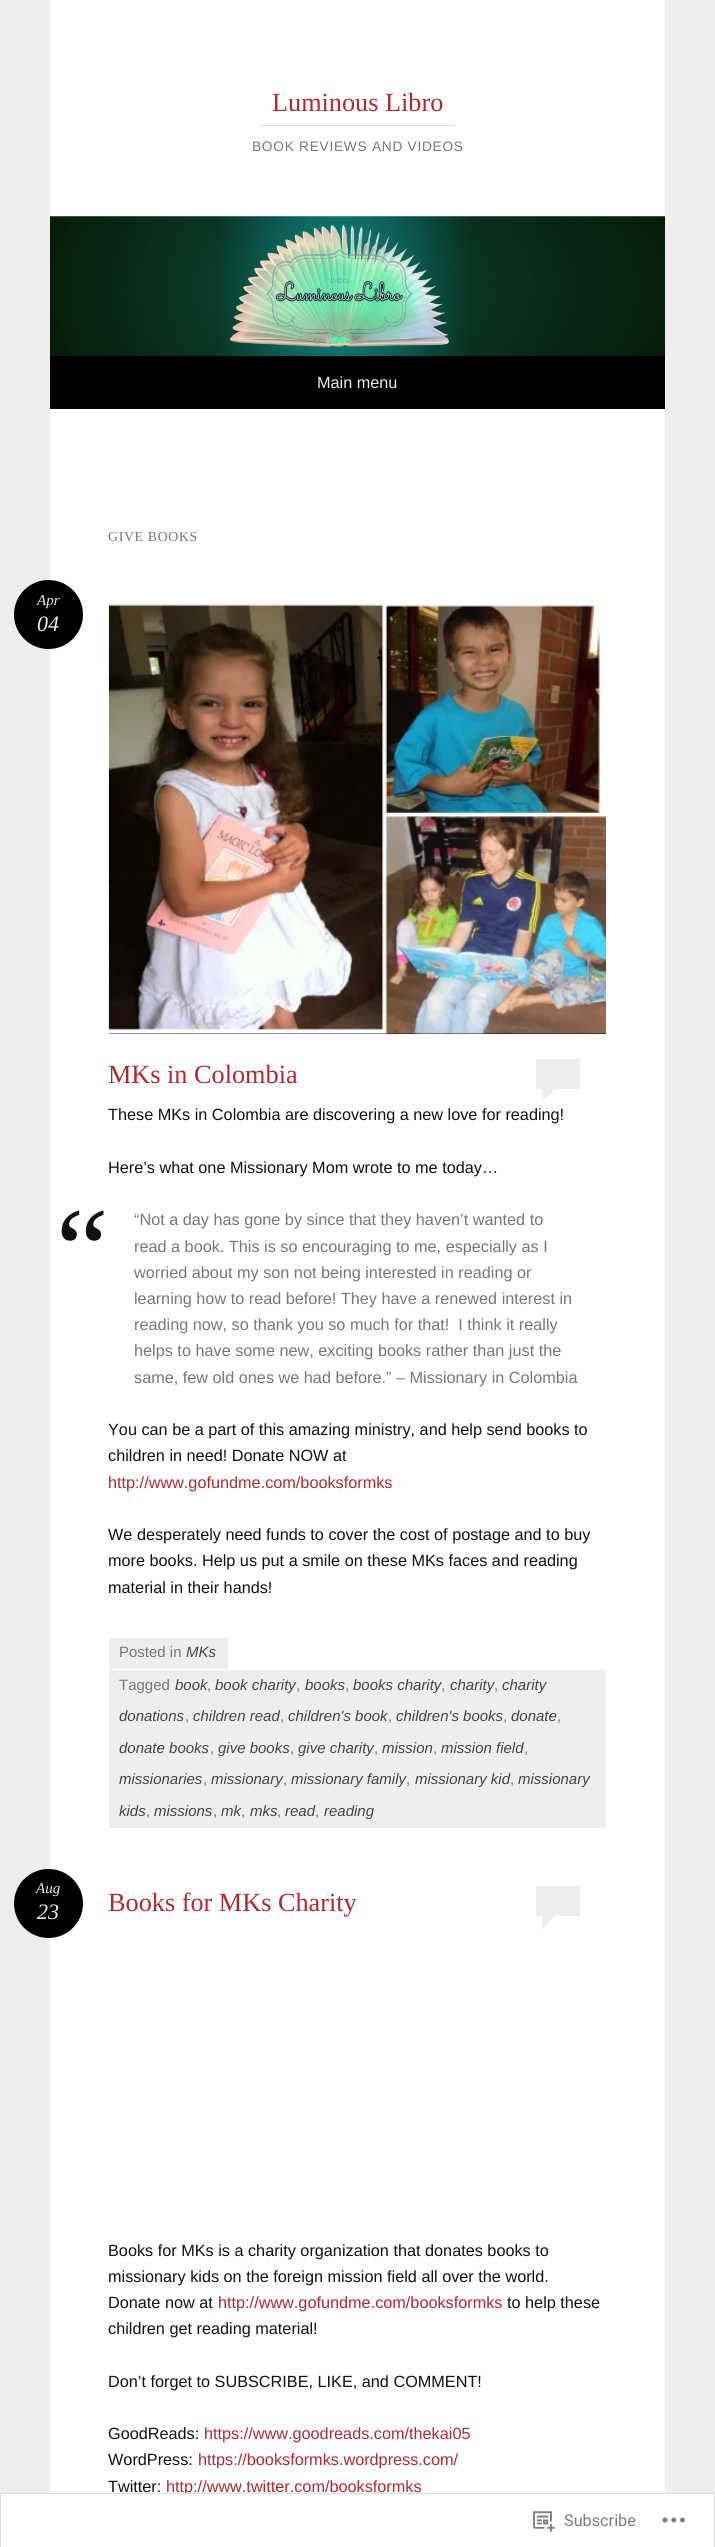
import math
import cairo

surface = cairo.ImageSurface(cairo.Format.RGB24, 715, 2547)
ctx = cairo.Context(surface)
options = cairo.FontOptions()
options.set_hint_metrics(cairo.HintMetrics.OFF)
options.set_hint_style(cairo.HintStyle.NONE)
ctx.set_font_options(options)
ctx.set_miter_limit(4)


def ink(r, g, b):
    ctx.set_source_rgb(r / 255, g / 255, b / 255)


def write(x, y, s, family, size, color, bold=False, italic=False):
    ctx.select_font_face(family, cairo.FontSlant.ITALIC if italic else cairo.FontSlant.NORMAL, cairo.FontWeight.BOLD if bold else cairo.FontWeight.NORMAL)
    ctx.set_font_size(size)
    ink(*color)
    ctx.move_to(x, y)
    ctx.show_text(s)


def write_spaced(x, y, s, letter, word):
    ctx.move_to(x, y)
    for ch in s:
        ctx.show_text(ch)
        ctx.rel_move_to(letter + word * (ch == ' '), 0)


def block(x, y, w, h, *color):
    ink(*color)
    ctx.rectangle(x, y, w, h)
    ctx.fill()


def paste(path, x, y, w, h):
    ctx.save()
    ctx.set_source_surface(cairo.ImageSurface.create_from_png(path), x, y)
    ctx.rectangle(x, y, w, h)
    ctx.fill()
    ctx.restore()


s1 = dict(family="Liberation Serif", size=26.25, color=(177, 41, 48))
s2 = dict(family="Liberation Sans", size=16.25, color=(238, 238, 238))
s3 = dict(family="Liberation Serif", size=15, color=(238, 238, 238), italic=True)
s4 = dict(family="Liberation Serif", size=22, color=(238, 238, 238), italic=True)
s5 = dict(family="Liberation Sans", size=15, color=(119, 119, 119))
s6 = dict(family="Liberation Sans", size=15, color=(68, 68, 68), italic=True)
s7 = dict(family="Liberation Sans", size=16.25, color=(17, 17, 17))
s8 = dict(family="Liberation Serif", size=118, color=(17, 17, 17))
s9 = dict(family="Liberation Sans", size=16.25, color=(119, 119, 119))
s10 = dict(family="Liberation Sans", size=16.25, color=(177, 41, 48))
s11 = dict(family="Roboto", size=16.25, color=(123, 127, 133))

ink(238, 238, 238)
ctx.paint()
block(50, 0, 615, 2547, 255, 255, 255)
block(260, 125, 195, 1, 221, 221, 221)
write(272, 111, "Luminous Libro", **s1)
ctx.select_font_face("Liberation Sans")
ctx.set_font_size(13.75)
ink(119, 119, 119)
write_spaced(252, 151, "BOOK REVIEWS AND VIDEOS", 0.7, 0)
paste("pic1.png", 50, 216, 615, 140)
block(50, 356, 615, 53, 0, 0, 0)
write(317, 388, "Main menu", **s2)
ctx.select_font_face("Liberation Serif")
ctx.set_font_size(13.75)
ink(119, 119, 119)
write_spaced(108, 541, "GIVE BOOKS", 0.7, 0)
ink(0, 0, 0)
ctx.new_path()
ctx.arc(48.5, 614.5, 34.5, 0, 2 * math.pi)
ctx.fill()
write(37, 605, "Apr", **s3)
write(37, 631, "04", **s4)
block(109, 1638, 119, 31, 238, 238, 238)
write(119, 1657, "Posted in", **s5)
write(186, 1657, "MKs", **s6)
block(109, 1670, 497, 158, 238, 238, 238)
write(119, 1690, "Tagged", **s5)
write(175, 1690, "book", **s6)
write(207, 1690, ",", **s5)
write(215, 1690, "book charity", **s6)
write(296, 1690, ",", **s5)
write(305, 1690, "books", **s6)
write(345, 1690, ",", **s5)
write(353, 1690, "books charity", **s6)
write(441, 1690, ",", **s5)
write(450, 1690, "charity", **s6)
write(494, 1690, ",", **s5)
write(502, 1690, "charity", **s6)
write(119, 1721, "donations", **s6)
write(185, 1721, ",", **s5)
write(193, 1721, "children read", **s6)
write(280, 1721, ",", **s5)
write(288, 1721, "children's book", **s6)
write(388, 1721, ",", **s5)
write(396, 1721, "children's books", **s6)
write(503, 1721, ",", **s5)
write(511, 1721, "donate", **s6)
write(557, 1721, ",", **s5)
write(119, 1753, "donate books", **s6)
write(210, 1753, ",", **s5)
write(218, 1753, "give books", **s6)
write(290, 1753, ",", **s5)
write(298, 1753, "give charity", **s6)
write(374, 1753, ",", **s5)
write(382, 1753, "mission", **s6)
write(433, 1753, ",", **s5)
write(441, 1753, "mission field", **s6)
write(524, 1753, ",", **s5)
write(119, 1784, "missionaries", **s6)
write(203, 1784, ",", **s5)
write(211, 1784, "missionary", **s6)
write(283, 1784, ",", **s5)
write(291, 1784, "missionary family", **s6)
write(406, 1784, ",", **s5)
write(415, 1784, "missionary kid", **s6)
write(510, 1784, ",", **s5)
write(518, 1784, "missionary", **s6)
write(119, 1816, "kids", **s6)
write(146, 1816, ",", **s5)
write(154, 1816, "missions", **s6)
write(213, 1816, ",", **s5)
write(221, 1816, "mk", **s6)
write(241, 1816, ",", **s5)
write(250, 1816, "mks", **s6)
write(277, 1816, ",", **s5)
write(285, 1816, "read", **s6)
write(315, 1816, ",", **s5)
write(324, 1816, "reading", **s6)
block(109, 1033, 497, 1, 0, 0, 0)
paste("pic2.png", 108, 600, 499, 434)
write(108, 1083, "MKs in Colombia", **s1)
block(536, 1059, 44, 30, 238, 238, 238)
ctx.new_path()
ctx.move_to(542.5, 1101)
ctx.line_to(542.5, 1089)
ctx.line_to(555, 1089)
ctx.close_path()
ctx.fill()
write(108, 1120, "These MKs in Colombia are discovering a new love for reading!", **s7)
write(108, 1173, "Here’s what one Missionary Mom wrote to me today…", **s7)
write(56, 1289, "“", **s8)
write(134, 1225, "“Not a day has gone by since that they haven’t wanted to", **s9)
write(134, 1252, "read a book. This is so encouraging to me, especially as I", **s9)
write(134, 1278, "worried about my son not being interested in reading or", **s9)
write(134, 1304, "learning how to read before! They have a renewed interest in", **s9)
write(134, 1330, "reading now, so thank you so much for that!  I think it really", **s9)
write(134, 1356, "helps to have some new, exciting books rather than just the", **s9)
write(134, 1383, "same, few old ones we had before.” – Missionary in Colombia", **s9)
write(108, 1435, "You can be a part of this amazing ministry, and help send books to", **s7)
write(108, 1461, "children in need! Donate NOW at", **s7)
write(108, 1488, "http://www.gofundme.com/booksformks", **s10)
write(108, 1540, "We desperately need funds to cover the cost of postage and to buy", **s7)
write(108, 1566, "more books. Help us put a smile on these MKs faces and reading", **s7)
write(108, 1593, "material in their hands!", **s7)
ink(0, 0, 0)
ctx.new_path()
ctx.arc(48.5, 1903.5, 34.5, 0, 2 * math.pi)
ctx.fill()
write(36, 1893, "Aug", **s3)
write(37, 1919, "23", **s4)
write(108, 1911, "Books for MKs Charity", **s1)
block(536, 1886, 44, 30, 238, 238, 238)
ctx.new_path()
ctx.move_to(542.5, 1929)
ctx.line_to(542.5, 1916)
ctx.line_to(555, 1916)
ctx.close_path()
ctx.fill()
write(108, 2256, "Books for MKs is a charity organization that donates books to", **s7)
write(108, 2282, "missionary kids on the foreign mission field all over the world.", **s7)
write(108, 2308, "Donate now at", **s7)
write(218, 2308, "http://www.gofundme.com/booksformks", **s10)
write(507, 2308, "to help these", **s7)
write(108, 2334, "children get reading material!", **s7)
write(108, 2387, "Don’t forget to SUBSCRIBE, LIKE, and COMMENT!", **s7)
write(108, 2439, "GoodReads:", **s7)
write(204, 2439, "https://www.goodreads.com/thekai05", **s10)
write(108, 2465, "WordPress:", **s7)
write(198, 2465, "https://booksformks.wordpress.com/", **s10)
write(108, 2492, "Twitter:", **s7)
write(166, 2492, "http://www.twitter.com/booksformks", **s10)
ctx.set_source_rgba(1, 1, 1, 0.98)
ctx.rectangle(0, 2493, 715, 54)
ctx.fill()
ctx.rectangle(0.5, 2493.5, 714, 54)
ctx.set_source_rgba(0.863, 0.863, 0.871, 0.98)
ctx.set_line_width(1)
ctx.stroke()
paste("pic3.png", 533, 2511, 22, 21)
write(564, 2526, "Subscribe", **s11)
paste("pic4.png", 662, 2517, 23, 6)
surface.write_to_png("screenshot.png")
